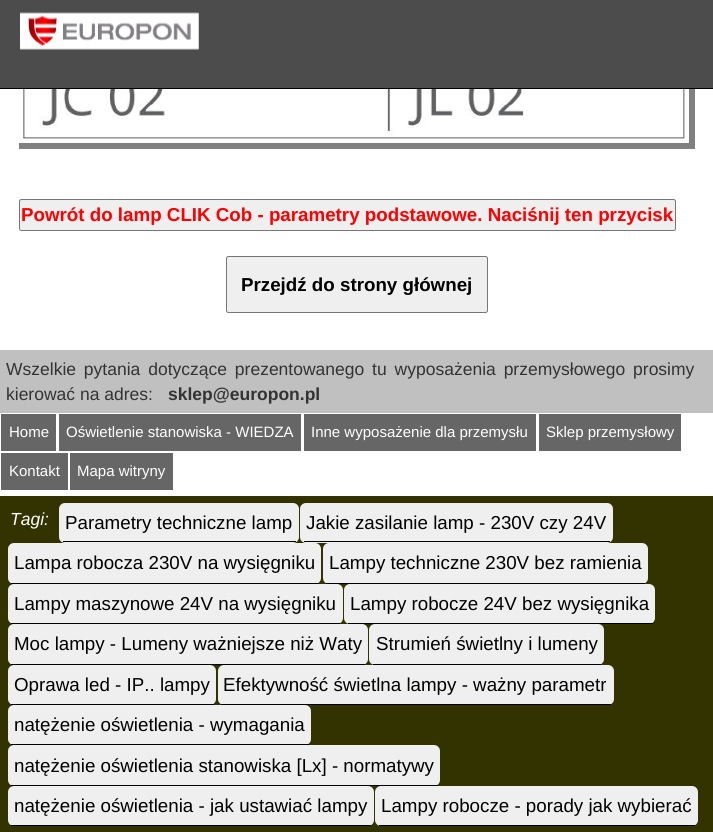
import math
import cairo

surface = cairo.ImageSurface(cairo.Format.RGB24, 713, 832)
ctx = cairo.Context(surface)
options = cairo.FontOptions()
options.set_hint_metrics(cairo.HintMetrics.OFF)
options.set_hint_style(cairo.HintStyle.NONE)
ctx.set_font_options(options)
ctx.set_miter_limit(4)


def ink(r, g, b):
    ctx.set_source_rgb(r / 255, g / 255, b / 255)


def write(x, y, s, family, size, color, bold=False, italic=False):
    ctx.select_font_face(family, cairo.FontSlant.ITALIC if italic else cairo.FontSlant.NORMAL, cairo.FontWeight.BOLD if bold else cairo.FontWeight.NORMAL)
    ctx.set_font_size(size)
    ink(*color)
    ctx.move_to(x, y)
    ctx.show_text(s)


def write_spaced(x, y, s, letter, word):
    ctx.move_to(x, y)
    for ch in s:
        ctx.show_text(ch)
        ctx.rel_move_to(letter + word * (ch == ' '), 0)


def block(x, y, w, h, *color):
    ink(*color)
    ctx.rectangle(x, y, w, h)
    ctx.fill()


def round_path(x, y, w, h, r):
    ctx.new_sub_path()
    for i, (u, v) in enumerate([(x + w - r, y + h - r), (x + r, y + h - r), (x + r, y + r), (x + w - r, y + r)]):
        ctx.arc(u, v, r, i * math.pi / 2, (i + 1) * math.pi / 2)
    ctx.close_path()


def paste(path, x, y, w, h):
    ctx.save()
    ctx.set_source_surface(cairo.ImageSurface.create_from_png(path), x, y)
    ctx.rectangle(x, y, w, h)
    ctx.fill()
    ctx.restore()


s1 = dict(family="Liberation Sans", size=18.75, color=(255, 0, 0), bold=True)
s2 = dict(family="Liberation Sans", size=18.75, color=(0, 0, 0), bold=True)
s3 = dict(family="Liberation Sans", size=17.5, color=(51, 51, 51))
s4 = dict(family="Liberation Sans", size=17.5, color=(51, 51, 51), bold=True)
s5 = dict(family="Liberation Sans", size=15, color=(255, 255, 255))
s6 = dict(family="Liberation Sans", size=17.5, color=(255, 255, 255), italic=True)
s7 = dict(family="Liberation Sans", size=18.75, color=(0, 0, 0))

ink(255, 255, 255)
ctx.paint()
block(0, 0, 713, 88, 76, 76, 76)
block(0, 88, 713, 1, 0, 0, 0)
paste("pic1.png", 20, 12, 179, 38)
paste("pic2.png", 20, 89, 667, 54)
block(689, 89, 6, 60, 128, 128, 128)
block(19, 143, 676, 6, 128, 128, 128)
ink(239, 239, 239)
round_path(19.5, 199.5, 656, 31, 2)
ctx.fill_preserve()
ink(118, 118, 118)
ctx.set_line_width(1)
ctx.stroke()
write(21, 221, "Powrót do lamp CLIK Cob - parametry podstawowe. Naciśnij ten przycisk", **s1)
ink(239, 239, 239)
round_path(226.5, 256.5, 261, 56, 2)
ctx.fill_preserve()
ink(118, 118, 118)
ctx.stroke()
write(241, 291, "Przejdź do strony głównej", **s2)
block(0, 350, 713, 63, 192, 192, 192)
ctx.select_font_face("Liberation Sans")
ctx.set_font_size(17.5)
ink(51, 51, 51)
write_spaced(6, 375, "Wszelkie pytania dotyczące prezentowanego tu wyposażenia przemysłowego prosimy", 0, 3)
write(6, 400, "kierować na adres:", **s3)
write(168, 400, "sklep@europon.pl", **s4)
block(1, 414, 55, 37, 102, 102, 102)
write(9, 437, "Home", **s5)
block(59, 414, 242, 37, 102, 102, 102)
write(66, 437, "Oświetlenie stanowiska - WIEDZA", **s5)
block(304, 414, 232, 37, 102, 102, 102)
write(311, 437, "Inne wyposażenie dla przemysłu", **s5)
block(539, 414, 142, 37, 102, 102, 102)
write(546, 437, "Sklep przemysłowy", **s5)
block(1, 453, 67, 37, 102, 102, 102)
write(9, 476, "Kontakt", **s5)
block(70, 453, 103, 37, 102, 102, 102)
write(77, 476, "Mapa witryny", **s5)
block(0, 496, 713, 336, 51, 51, 0)
write(10, 525, "Tagi:", **s6)
ink(239, 239, 239)
round_path(59, 503, 240, 40, 6)
ctx.fill()
block(63, 541, 233, 1, 0, 0, 0)
write(65, 529, "Parametry techniczne lamp", **s7)
ink(239, 239, 239)
round_path(300, 503, 313, 40, 6)
ctx.fill()
block(304, 541, 306, 1, 0, 0, 0)
write(306, 529, "Jakie zasilanie lamp - 230V czy 24V", **s7)
ink(239, 239, 239)
round_path(8, 543, 313, 41, 6)
ctx.fill()
block(11, 583, 308, 1, 0, 0, 0)
write(14, 569, "Lampa robocza 230V na wysięgniku", **s7)
ink(239, 239, 239)
round_path(323, 543, 325, 41, 6)
ctx.fill()
block(326, 583, 319, 1, 0, 0, 0)
write(329, 569, "Lampy techniczne 230V bez ramienia", **s7)
ink(239, 239, 239)
round_path(8, 584, 335, 40, 6)
ctx.fill()
block(11, 623, 329, 1, 0, 0, 0)
write(14, 610, "Lampy maszynowe 24V na wysięgniku", **s7)
ink(239, 239, 239)
round_path(344, 584, 311, 40, 6)
ctx.fill()
block(348, 623, 305, 1, 0, 0, 0)
write(350, 610, "Lampy robocze 24V bez wysięgnika", **s7)
ink(239, 239, 239)
round_path(8, 624, 360, 41, 6)
ctx.fill()
block(11, 664, 354, 1, 0, 0, 0)
write(14, 650, "Moc lampy - Lumeny ważniejsze niż Waty", **s7)
ink(239, 239, 239)
round_path(369, 624, 235, 41, 6)
ctx.fill()
block(373, 664, 228, 1, 0, 0, 0)
write(376, 650, "Strumień świetlny i lumeny", **s7)
ink(239, 239, 239)
round_path(8, 665, 208, 40, 6)
ctx.fill()
block(11, 704, 203, 1, 0, 0, 0)
write(14, 691, "Oprawa led - IP.. lampy", **s7)
ink(239, 239, 239)
round_path(218, 665, 396, 40, 6)
ctx.fill()
block(221, 704, 390, 1, 0, 0, 0)
write(223, 691, "Efektywność świetlna lampy - ważny parametr", **s7)
ink(239, 239, 239)
round_path(8, 705, 303, 40, 6)
ctx.fill()
block(11, 744, 298, 1, 0, 0, 0)
write(14, 731, "natężenie oświetlenia - wymagania", **s7)
ink(239, 239, 239)
round_path(8, 745, 432, 41, 6)
ctx.fill()
block(11, 785, 427, 1, 0, 0, 0)
write(14, 772, "natężenie oświetlenia stanowiska [Lx] - normatywy", **s7)
ink(239, 239, 239)
round_path(8, 786, 366, 40, 6)
ctx.fill()
block(11, 825, 360, 1, 0, 0, 0)
write(14, 812, "natężenie oświetlenia - jak ustawiać lampy", **s7)
ink(239, 239, 239)
round_path(375, 786, 323, 40, 6)
ctx.fill()
block(379, 825, 316, 1, 0, 0, 0)
write(381, 812, "Lampy robocze - porady jak wybierać", **s7)
surface.write_to_png("screenshot.png")
